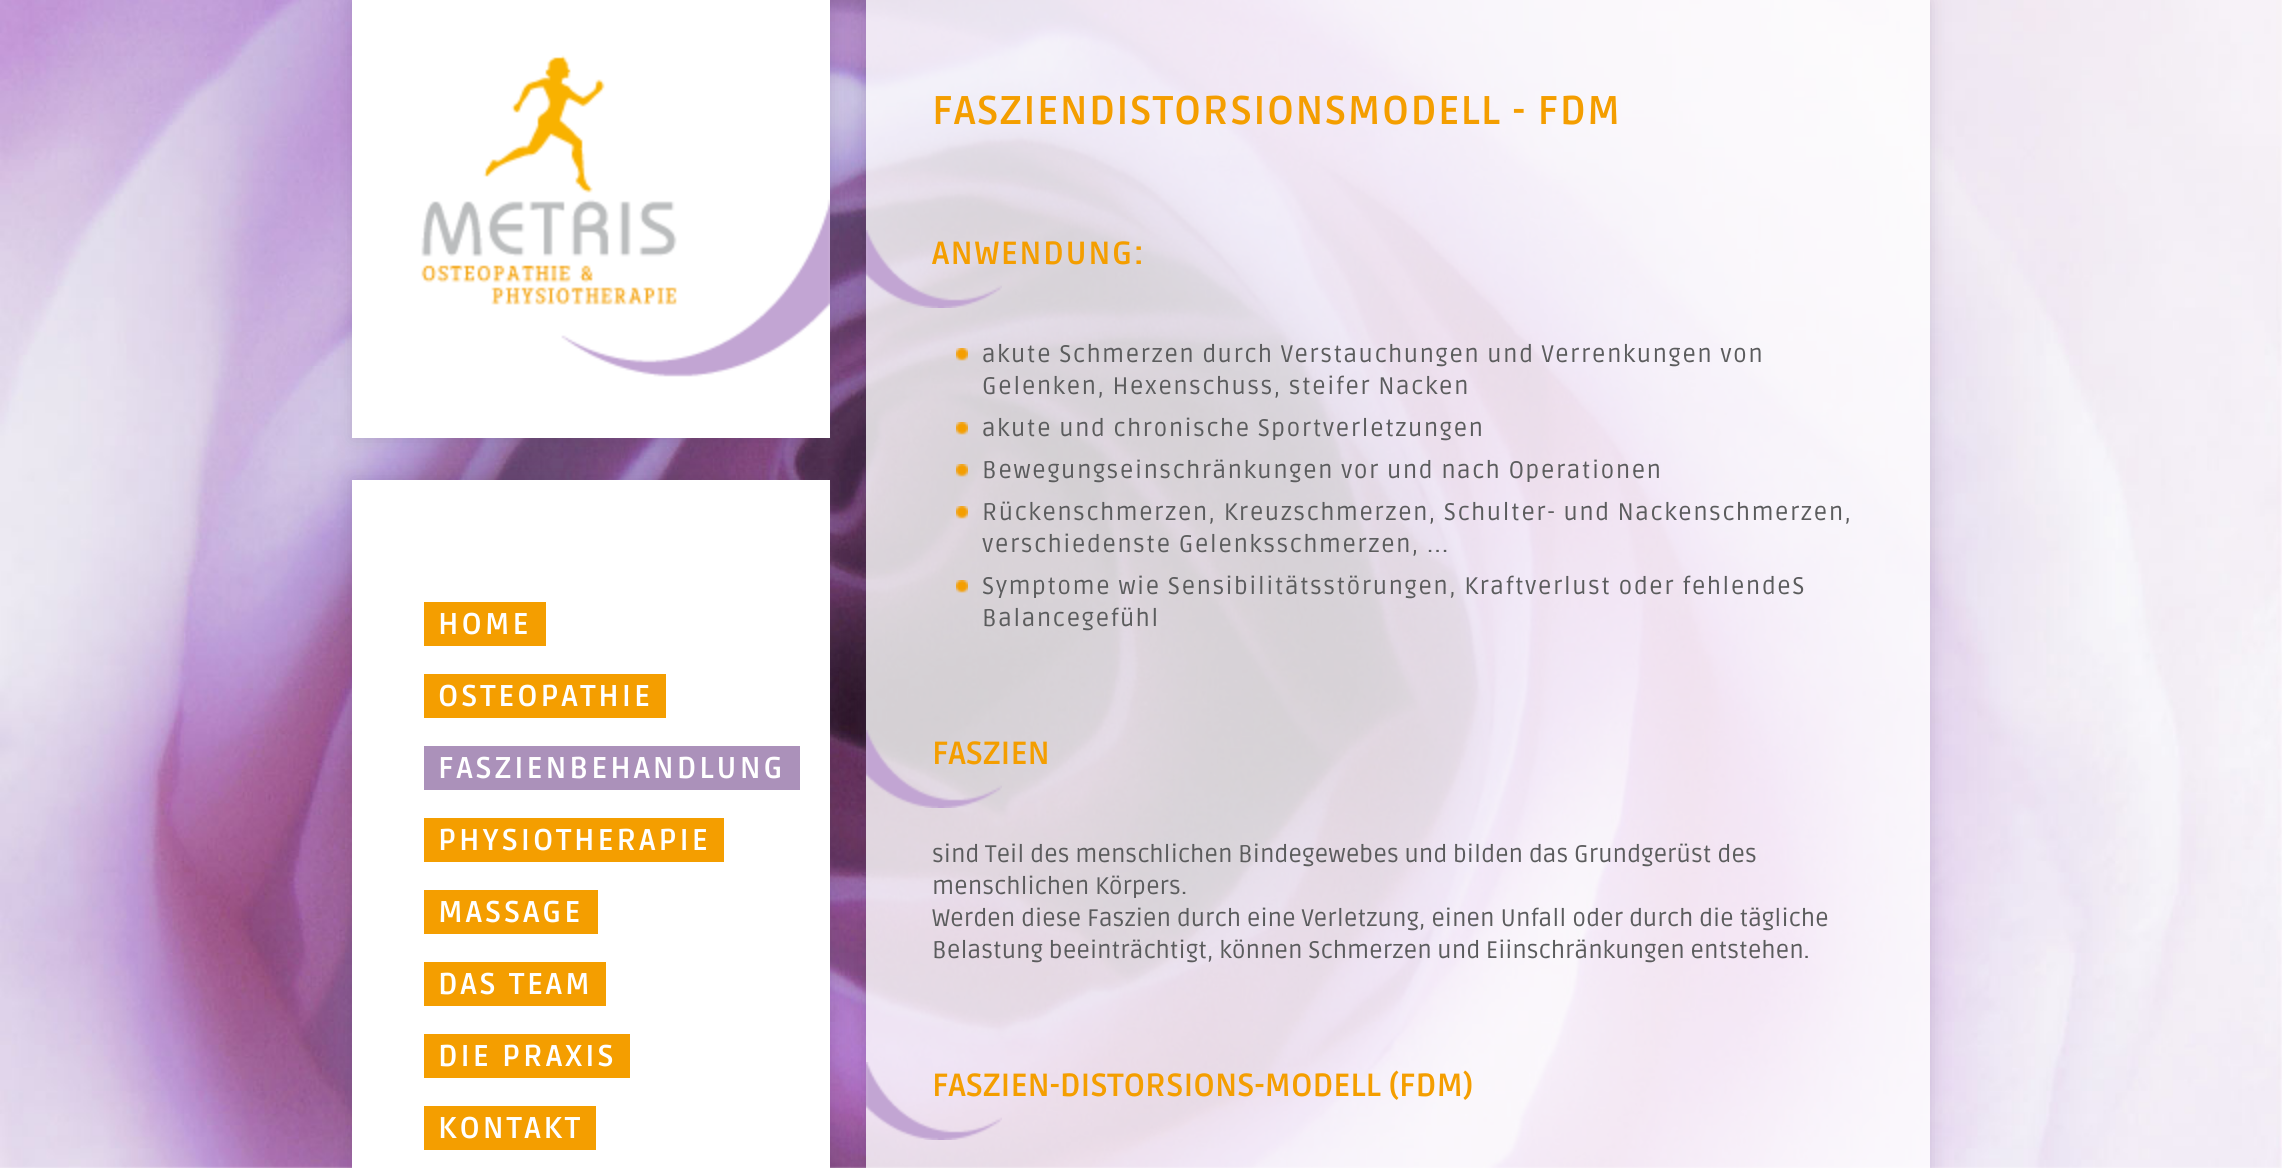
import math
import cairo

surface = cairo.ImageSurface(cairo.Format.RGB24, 2282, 1168)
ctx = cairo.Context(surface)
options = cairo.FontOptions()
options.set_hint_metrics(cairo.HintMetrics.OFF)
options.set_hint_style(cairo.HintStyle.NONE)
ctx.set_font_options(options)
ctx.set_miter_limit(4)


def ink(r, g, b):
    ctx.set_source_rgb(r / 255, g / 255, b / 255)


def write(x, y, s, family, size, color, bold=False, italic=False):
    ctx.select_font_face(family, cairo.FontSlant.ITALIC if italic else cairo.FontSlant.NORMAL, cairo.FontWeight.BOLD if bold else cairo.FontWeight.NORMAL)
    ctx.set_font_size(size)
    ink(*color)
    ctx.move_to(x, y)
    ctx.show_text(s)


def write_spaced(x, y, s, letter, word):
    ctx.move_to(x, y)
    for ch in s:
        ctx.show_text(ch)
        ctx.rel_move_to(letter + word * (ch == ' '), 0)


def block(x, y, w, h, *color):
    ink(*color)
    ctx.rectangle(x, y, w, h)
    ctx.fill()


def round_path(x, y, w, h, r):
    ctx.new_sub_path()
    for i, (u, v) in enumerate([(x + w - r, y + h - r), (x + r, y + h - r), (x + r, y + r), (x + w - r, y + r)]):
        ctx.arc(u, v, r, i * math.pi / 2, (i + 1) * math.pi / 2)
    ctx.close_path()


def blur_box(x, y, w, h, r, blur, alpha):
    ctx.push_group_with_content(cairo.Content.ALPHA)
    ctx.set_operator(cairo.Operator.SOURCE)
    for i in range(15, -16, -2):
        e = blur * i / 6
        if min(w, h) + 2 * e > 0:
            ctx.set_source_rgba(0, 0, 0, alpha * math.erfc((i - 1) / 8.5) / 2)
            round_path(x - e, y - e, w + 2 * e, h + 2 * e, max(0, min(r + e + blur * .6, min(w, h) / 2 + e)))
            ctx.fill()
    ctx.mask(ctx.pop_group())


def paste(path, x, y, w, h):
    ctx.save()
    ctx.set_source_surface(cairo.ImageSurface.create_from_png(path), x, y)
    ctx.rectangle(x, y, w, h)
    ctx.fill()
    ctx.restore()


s1 = dict(family="Ruda", size=32, color=(244, 158, 0), bold=True)
s2 = dict(family="Ruda", size=24, color=(91, 92, 93))

ink(255, 255, 255)
ctx.paint()
paste("pic1.png", 0, 0, 2282, 1168)
ink(80, 60, 98)
blur_box(352, 0, 478, 438, 0, 10, 0.2)
paste("pic2.png", 352, 0, 478, 438)
blur_box(352, 480, 478, 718, 0, 10, 0.2)
block(352, 480, 478, 688, 255, 255, 255)
block(424, 602, 122, 44, 244, 158, 0)
ctx.select_font_face("Ruda", cairo.FontSlant.NORMAL, cairo.FontWeight.BOLD)
ctx.set_font_size(30)
ink(255, 255, 255)
write_spaced(438, 634, "HOME", 3, 0)
block(424, 674, 242, 44, 244, 158, 0)
ink(255, 255, 255)
write_spaced(438, 706, "OSTEOPATHIE", 3, 0)
block(424, 746, 376, 44, 171, 145, 186)
ink(255, 255, 255)
write_spaced(438, 778, "FASZIENBEHANDLUNG", 3, 0)
block(424, 818, 300, 44, 244, 158, 0)
ink(255, 255, 255)
write_spaced(438, 850, "PHYSIOTHERAPIE", 3, 0)
block(424, 890, 174, 44, 244, 158, 0)
ink(255, 255, 255)
write_spaced(438, 922, "MASSAGE", 3, 0)
block(424, 962, 182, 44, 244, 158, 0)
ink(255, 255, 255)
write_spaced(438, 994, "DAS TEAM", 3, 0)
block(424, 1034, 206, 44, 244, 158, 0)
ink(255, 255, 255)
write_spaced(438, 1066, "DIE PRAXIS", 3, 0)
block(424, 1106, 172, 44, 244, 158, 0)
ink(255, 255, 255)
write_spaced(438, 1138, "KONTAKT", 3, 0)
ctx.save()
ctx.set_fill_rule(cairo.FillRule.EVEN_ODD)
ctx.new_path()
ctx.move_to(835, 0)
ctx.line_to(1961, 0)
ctx.line_to(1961, 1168)
ctx.line_to(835, 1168)
ctx.close_path()
ctx.move_to(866, 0)
ctx.line_to(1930, 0)
ctx.line_to(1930, 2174)
ctx.line_to(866, 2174)
ctx.close_path()
ctx.clip()
ink(80, 60, 98)
blur_box(866, 0, 1064, 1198, 0, 10, 0.2)
ctx.restore()
ctx.set_source_rgba(1, 1, 1, 0.8)
ctx.rectangle(866, 0, 1064, 1168)
ctx.fill()
ctx.set_font_size(40)
ink(244, 158, 0)
write_spaced(932, 124, "FASZIENDISTORSIONSMODELL - FDM", 1.4, 0)
ctx.set_font_size(32)
write_spaced(932, 264, "ANWENDUNG:", 1.4, 0)
paste("pic3.png", 866, 230, 136, 78)
paste("pic4.png", 956, 348, 12, 13)
ctx.select_font_face("Ruda")
ctx.set_font_size(24)
ink(91, 92, 93)
write_spaced(982, 362, "akute Schmerzen durch Verstauchungen und Verrenkungen von", 1.4, 0)
write_spaced(982, 394, "Gelenken, Hexenschuss, steifer Nacken", 1.4, 0)
paste("pic5.png", 956, 422, 12, 13)
write_spaced(982, 436, "akute und chronische Sportverletzungen", 1.4, 0)
paste("pic6.png", 956, 464, 12, 13)
write_spaced(982, 478, "Bewegungseinschränkungen vor und nach Operationen", 1.4, 0)
paste("pic7.png", 956, 506, 12, 13)
write_spaced(982, 520, "Rückenschmerzen, Kreuzschmerzen, Schulter- und Nackenschmerzen,", 1.4, 0)
write_spaced(982, 552, "verschiedenste Gelenksschmerzen, ...", 1.4, 0)
paste("pic8.png", 956, 580, 12, 13)
write_spaced(982, 594, "Symptome wie Sensibilitätsstörungen, Kraftverlust oder fehlendeS", 1.4, 0)
write_spaced(982, 626, "Balancegefühl", 1.4, 0)
write(932, 764, "FASZIEN", **s1)
paste("pic9.png", 866, 730, 136, 78)
write(932, 862, "sind Teil des menschlichen Bindegewebes und bilden das Grundgerüst des", **s2)
write(932, 894, "menschlichen Körpers.", **s2)
write(932, 926, "Werden diese Faszien durch eine Verletzung, einen Unfall oder durch die tägliche", **s2)
write(932, 958, "Belastung beeinträchtigt, können Schmerzen und Eiinschränkungen entstehen.", **s2)
write(932, 1096, "FASZIEN-DISTORSIONS-MODELL (FDM)", **s1)
paste("pic10.png", 866, 1062, 136, 78)
surface.write_to_png("screenshot.png")
